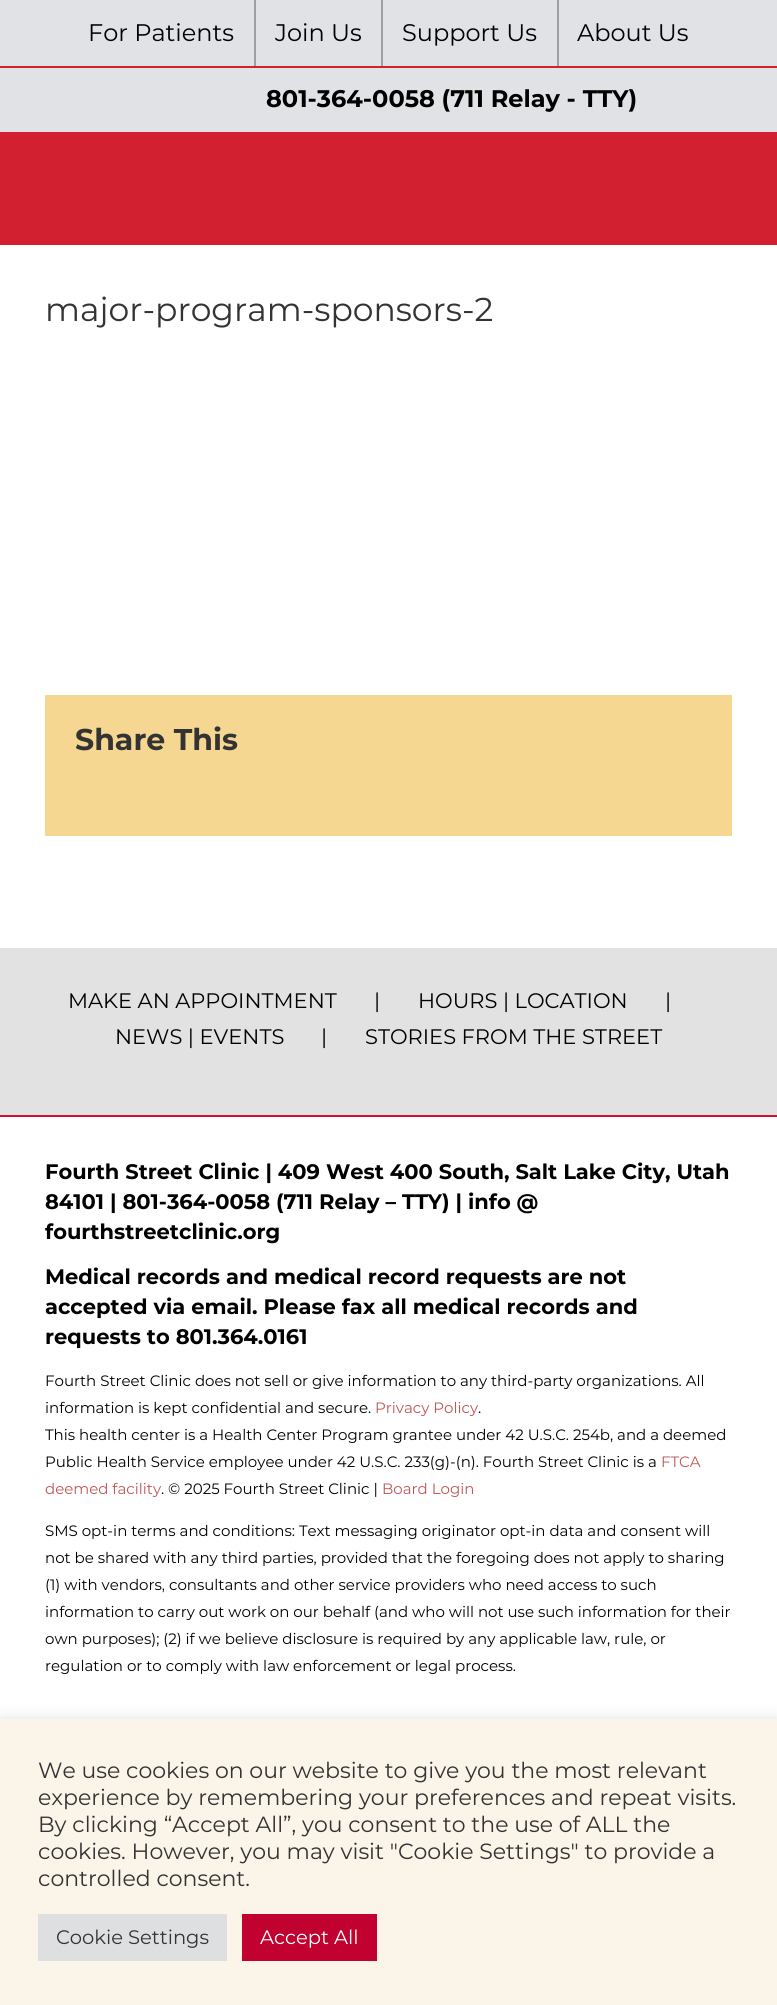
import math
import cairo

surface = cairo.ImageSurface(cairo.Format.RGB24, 777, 2005)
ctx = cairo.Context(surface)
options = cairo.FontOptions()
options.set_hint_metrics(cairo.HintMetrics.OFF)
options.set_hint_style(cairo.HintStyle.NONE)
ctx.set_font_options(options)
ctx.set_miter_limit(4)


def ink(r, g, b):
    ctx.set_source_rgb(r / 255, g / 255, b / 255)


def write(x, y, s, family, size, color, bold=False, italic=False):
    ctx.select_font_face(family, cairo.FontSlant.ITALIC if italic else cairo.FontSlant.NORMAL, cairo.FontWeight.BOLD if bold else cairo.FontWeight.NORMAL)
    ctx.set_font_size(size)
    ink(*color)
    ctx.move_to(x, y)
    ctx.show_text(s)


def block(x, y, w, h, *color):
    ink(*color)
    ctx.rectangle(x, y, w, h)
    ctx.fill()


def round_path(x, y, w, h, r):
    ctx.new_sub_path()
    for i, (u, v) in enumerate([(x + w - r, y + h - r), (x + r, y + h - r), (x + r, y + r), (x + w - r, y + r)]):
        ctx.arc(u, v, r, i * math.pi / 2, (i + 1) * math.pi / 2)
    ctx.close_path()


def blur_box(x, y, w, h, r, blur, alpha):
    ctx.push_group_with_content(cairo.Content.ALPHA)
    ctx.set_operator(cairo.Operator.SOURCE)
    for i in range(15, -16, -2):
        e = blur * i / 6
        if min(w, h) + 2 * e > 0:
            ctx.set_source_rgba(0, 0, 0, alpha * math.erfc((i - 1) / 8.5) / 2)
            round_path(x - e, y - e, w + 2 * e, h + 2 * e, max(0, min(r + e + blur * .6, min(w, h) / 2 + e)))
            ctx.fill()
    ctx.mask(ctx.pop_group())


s1 = dict(family="Montserrat", size=24, color=(0, 0, 0))
s2 = dict(family="Montserrat", size=24, color=(0, 0, 0), bold=True)
s3 = dict(family="Montserrat", size=33, color=(51, 51, 51))
s4 = dict(family="Montserrat", size=30, color=(51, 51, 51), bold=True)
s5 = dict(family="Montserrat", size=21, color=(0, 0, 0))
s6 = dict(family="Montserrat", size=21, color=(0, 0, 0), bold=True)
s7 = dict(family="Montserrat", size=15, color=(0, 0, 0))
s8 = dict(family="Montserrat", size=15, color=(191, 87, 87))
s9 = dict(family="Montserrat", size=22, color=(51, 51, 51))
s10 = dict(family="Montserrat", size=19.5, color=(51, 51, 51))
s11 = dict(family="Montserrat", size=19.5, color=(255, 255, 255))

ink(255, 255, 255)
ctx.paint()
block(0, 0, 777, 132, 224, 226, 229)
block(0, 132, 777, 113, 210, 32, 48)
block(0, 66, 777, 2, 210, 32, 48)
write(88, 41, "For Patients", **s1)
block(254, 0, 2, 66, 158, 159, 160)
write(275, 41, "Join Us", **s1)
block(381, 0, 2, 66, 158, 159, 160)
write(402, 41, "Support Us", **s1)
block(557, 0, 2, 66, 158, 159, 160)
write(577, 41, "About Us", **s1)
write(266, 107, "801-364-0058 (711 Relay - TTY)", **s2)
write(45, 321, "major-program-sponsors-2", **s3)
block(45, 695, 687, 141, 245, 215, 146)
write(75, 750, "Share This", **s4)
block(0, 948, 777, 167, 226, 226, 226)
write(68, 1008, "MAKE AN APPOINTMENT", **s5)
write(374, 1008, "|", **s5)
write(418, 1008, "HOURS | LOCATION", **s5)
write(665, 1008, "|", **s5)
write(115, 1044, "NEWS | EVENTS", **s5)
write(321, 1044, "|", **s5)
write(365, 1044, "STORIES FROM THE STREET", **s5)
block(0, 1115, 777, 2, 208, 17, 43)
write(45, 1179, "Fourth Street Clinic | 409 West 400 South, Salt Lake City, Utah", **s6)
write(45, 1209, "84101 | 801-364-0058 (711 Relay – TTY) | info @", **s6)
write(45, 1239, "fourthstreetclinic.org", **s6)
write(45, 1284, "Medical records and medical record requests are not", **s6)
write(45, 1314, "accepted via email. Please fax all medical records and", **s6)
write(45, 1344, "requests to 801.364.0161", **s6)
write(45, 1386, "Fourth Street Clinic does not sell or give information to any third-party organizations. All", **s7)
write(45, 1413, "information is kept confidential and secure.", **s7)
write(375, 1413, "Privacy Policy", **s8)
write(478, 1413, ".", **s7)
write(45, 1440, "This health center is a Health Center Program grantee under 42 U.S.C. 254b, and a deemed", **s7)
write(45, 1467, "Public Health Service employee under 42 U.S.C. 233(g)-(n). Fourth Street Clinic is a", **s7)
write(661, 1467, "FTCA", **s8)
write(45, 1494, "deemed facility", **s8)
write(161, 1494, ". © 2025 Fourth Street Clinic |", **s7)
write(382, 1494, "Board Login", **s8)
write(45, 1536, "SMS opt-in terms and conditions: Text messaging originator opt-in data and consent will", **s7)
write(45, 1563, "not be shared with any third parties, provided that the foregoing does not apply to sharing", **s7)
write(45, 1590, "(1) with vendors, consultants and other service providers who need access to such", **s7)
write(45, 1617, "information to carry out work on our behalf (and who will not use such information for their", **s7)
write(45, 1644, "own purposes); (2) if we believe disclosure is required by any applicable law, rule, or", **s7)
write(45, 1671, "regulation or to comply with law enforcement or legal process.", **s7)
ink(172, 171, 171)
blur_box(0, 1718, 777, 286, 0, 7.5, 0.3)
block(0, 1719, 777, 286, 251, 244, 233)
write(38, 1778, "We use cookies on our website to give you the most relevant", **s9)
write(38, 1805, "experience by remembering your preferences and repeat visits.", **s9)
write(38, 1832, "By clicking “Accept All”, you consent to the use of ALL the", **s9)
write(38, 1859, "cookies. However, you may visit \"Cookie Settings\" to provide a", **s9)
write(38, 1886, "controlled consent.", **s9)
block(38, 1914, 189, 47, 222, 223, 224)
write(56, 1944, "Cookie Settings", **s10)
block(242, 1914, 135, 47, 193, 2, 48)
write(260, 1944, "Accept All", **s11)
surface.write_to_png("screenshot.png")
